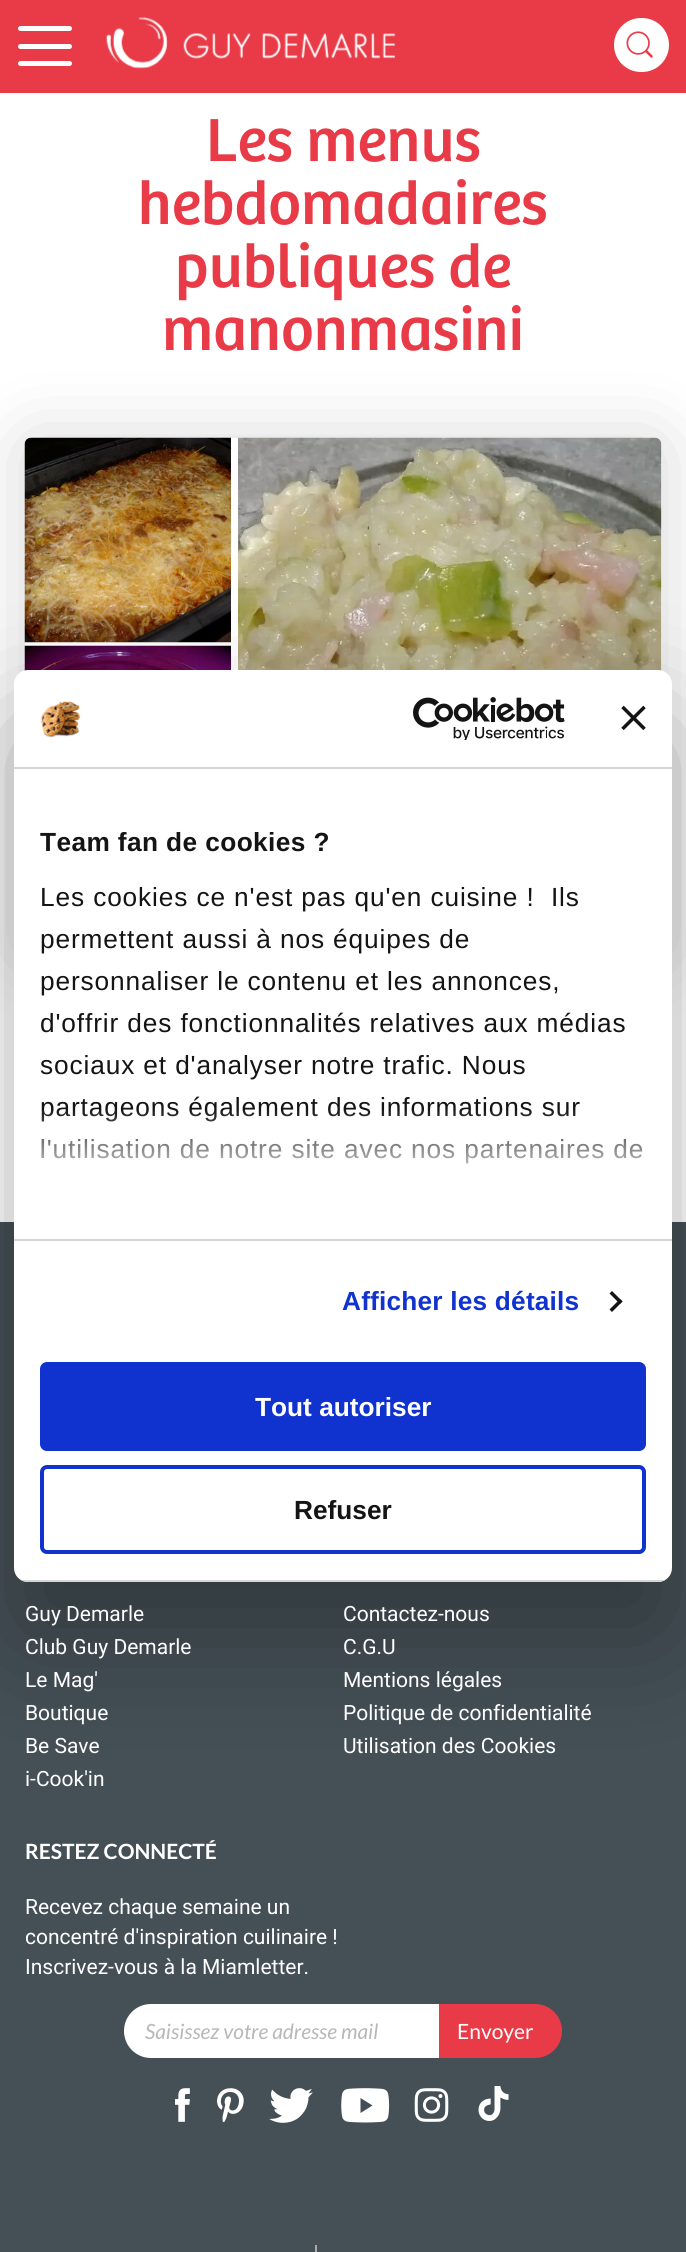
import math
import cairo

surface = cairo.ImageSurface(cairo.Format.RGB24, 686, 2252)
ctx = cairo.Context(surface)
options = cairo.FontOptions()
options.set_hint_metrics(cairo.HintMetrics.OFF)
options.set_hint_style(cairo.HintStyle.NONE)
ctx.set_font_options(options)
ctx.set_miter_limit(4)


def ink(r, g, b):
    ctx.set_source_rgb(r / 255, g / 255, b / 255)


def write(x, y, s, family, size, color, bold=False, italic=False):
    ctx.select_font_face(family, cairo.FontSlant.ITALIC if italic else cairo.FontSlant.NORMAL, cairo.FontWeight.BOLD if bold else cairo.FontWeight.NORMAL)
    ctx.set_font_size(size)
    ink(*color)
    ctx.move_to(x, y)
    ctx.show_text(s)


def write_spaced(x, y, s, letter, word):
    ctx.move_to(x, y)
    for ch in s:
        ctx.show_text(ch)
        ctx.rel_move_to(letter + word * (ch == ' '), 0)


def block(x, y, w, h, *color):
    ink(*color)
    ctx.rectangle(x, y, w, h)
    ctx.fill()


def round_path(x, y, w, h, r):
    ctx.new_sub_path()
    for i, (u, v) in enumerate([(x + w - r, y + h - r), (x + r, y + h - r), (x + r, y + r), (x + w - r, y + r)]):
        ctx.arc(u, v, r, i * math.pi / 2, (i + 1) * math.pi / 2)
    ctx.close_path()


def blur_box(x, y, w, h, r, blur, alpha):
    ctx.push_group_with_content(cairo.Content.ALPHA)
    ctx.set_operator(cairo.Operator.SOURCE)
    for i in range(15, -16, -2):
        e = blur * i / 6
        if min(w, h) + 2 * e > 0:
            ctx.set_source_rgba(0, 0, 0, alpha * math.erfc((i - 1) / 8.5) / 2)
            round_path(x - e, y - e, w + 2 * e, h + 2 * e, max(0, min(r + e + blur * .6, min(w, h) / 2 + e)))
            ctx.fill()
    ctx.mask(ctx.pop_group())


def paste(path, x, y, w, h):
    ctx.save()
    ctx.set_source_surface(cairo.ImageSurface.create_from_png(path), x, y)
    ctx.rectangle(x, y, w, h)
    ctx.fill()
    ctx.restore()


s1 = dict(family="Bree", size=63, color=(232, 59, 71))
s2 = dict(family="Liberation Sans", size=26.25, color=(255, 255, 255), bold=True)
s3 = dict(family="Liberation Sans", size=26.25, color=(20, 20, 20), bold=True)
s4 = dict(family="Roboto", size=21, color=(255, 255, 255))
s5 = dict(family="Lato", size=21, color=(255, 255, 255), bold=True)
s6 = dict(family="Lato", size=21, color=(184, 184, 184), italic=True)
s7 = dict(family="Lato", size=21, color=(255, 255, 255))

ink(255, 255, 255)
ctx.paint()
block(0, 0, 686, 93, 232, 59, 71)
ink(255, 255, 255)
round_path(18, 44, 54, 5, 2.5)
ctx.fill()
round_path(18, 26, 54, 5, 2.5)
ctx.fill()
round_path(18, 61, 54, 5, 2.5)
ctx.fill()
paste("pic1.png", 106, 17, 290, 52)
round_path(614, 18, 55, 54, 27)
ctx.fill()
paste("pic2.png", 626, 31, 27, 27)
write(206, 161, "Les menus", **s1)
write(138, 224, "hebdomadaires", **s1)
write(175, 287, "publiques de", **s1)
ink(0, 0, 0)
blur_box(25, 441, 637, 515, 7, 38.5, 0.16)
write(162, 350, "manonmasini", **s1)
ink(255, 255, 255)
round_path(25, 438, 637, 514, 7)
ctx.fill()
paste("pic3.png", 24, 437, 207, 206)
paste("pic4.png", 24, 645, 207, 26)
paste("pic5.png", 238, 437, 424, 234)
block(0, 1222, 686, 1030, 68, 80, 86)
ink(0, 0, 0)
blur_box(14, 726, 658, 912, 14, 59.5, 0.3)
ink(255, 255, 255)
round_path(14, 670, 658, 912, 14)
ctx.fill()
block(14, 767, 658, 2, 214, 214, 214)
paste("pic6.png", 40, 701, 41, 37)
paste("pic7.png", 413, 697, 152, 43)
paste("pic8.png", 621, 705, 25, 25)
block(14, 1239, 658, 2, 214, 214, 214)
ctx.select_font_face("Liberation Sans", cairo.FontSlant.NORMAL, cairo.FontWeight.BOLD)
ctx.set_font_size(26.25)
ink(20, 20, 20)
write_spaced(40, 851, "Team fan de cookies ?", 0.4, 0)
ctx.select_font_face("Liberation Sans")
write_spaced(40, 906, "Les cookies ce n'est pas qu'en cuisine !  Ils", 0.88, 0)
write_spaced(40, 948, "permettent aussi à nos équipes de", 0.88, 0)
write_spaced(40, 990, "personnaliser le contenu et les annonces,", 0.88, 0)
write_spaced(40, 1032, "d'offrir des fonctionnalités relatives aux médias", 0.88, 0)
write_spaced(40, 1074, "sociaux et d'analyser notre trafic. Nous", 0.88, 0)
write_spaced(40, 1116, "partageons également des informations sur", 0.88, 0)
write_spaced(40, 1158, "l'utilisation de notre site avec nos partenaires de", 0.88, 0)
gradient = cairo.LinearGradient(332, 1239, 332, 1108)
gradient.add_color_stop_rgba(0, 1, 1, 1, 1)
gradient.add_color_stop_rgba(0.5, 1, 1, 1, 0.8)
gradient.add_color_stop_rgba(1, 1, 1, 1, 0)
ctx.set_source(gradient)
ctx.rectangle(42, 1110, 601, 54)
ctx.fill()
ctx.select_font_face("Liberation Sans", cairo.FontSlant.NORMAL, cairo.FontWeight.BOLD)
ink(16, 50, 207)
write_spaced(342, 1310, "Afficher les détails", 0.2, 0)
ink(20, 20, 20)
ctx.new_path()
ctx.move_to(612, 1291)
ctx.line_to(622.5, 1301.5)
ctx.line_to(620, 1304)
ctx.line_to(609.5, 1293.5)
ctx.close_path()
ctx.fill()
ctx.new_path()
ctx.move_to(620, 1299)
ctx.line_to(622.5, 1301.5)
ctx.line_to(612, 1312)
ctx.line_to(609.5, 1309.5)
ctx.close_path()
ctx.fill()
ctx.save()
round_path(14, 670, 658, 912, 14)
ctx.clip()
block(14, 1580, 658, 2, 214, 214, 214)
ctx.restore()
ink(16, 50, 207)
round_path(42, 1364, 602, 85, 5)
ctx.fill_preserve()
ctx.set_line_width(4)
ctx.stroke()
write(255, 1416, "Tout autoriser", **s2)
round_path(42, 1467, 602, 85, 5)
ink(16, 50, 207)
ctx.stroke()
write(294, 1519, "Refuser", **s3)
write(25, 1621, "Guy Demarle", **s4)
write(25, 1654, "Club Guy Demarle", **s4)
write(25, 1687, "Le Mag'", **s4)
write(25, 1720, "Boutique", **s4)
write(25, 1753, "Be Save", **s4)
write(25, 1786, "i-Cook'in", **s4)
write(343, 1621, "Contactez-nous", **s4)
write(343, 1654, "C.G.U", **s4)
write(343, 1687, "Mentions légales", **s4)
write(343, 1720, "Politique de confidentialité", **s4)
write(343, 1753, "Utilisation des Cookies", **s4)
write(25, 1859, "RESTEZ CONNECTÉ", **s5)
write(25, 1914, "Recevez chaque semaine un", **s4)
write(25, 1944, "concentré d'inspiration cuilinaire !", **s4)
write(25, 1974, "Inscrivez-vous à la Miamletter.", **s4)
ctx.new_path()
ctx.move_to(151, 2004)
ctx.line_to(439, 2004)
ctx.line_to(439, 2058)
ctx.line_to(151, 2058)
ctx.curve_to(136, 2058, 124, 2046, 124, 2031)
ctx.curve_to(124, 2016, 136, 2004, 151, 2004)
ctx.close_path()
ctx.fill()
write(145, 2039, "Saisissez votre adresse mail", **s6)
ink(232, 59, 71)
ctx.new_path()
ctx.move_to(439, 2004)
ctx.line_to(535, 2004)
ctx.curve_to(550, 2004, 562, 2016, 562, 2031)
ctx.curve_to(562, 2046, 550, 2058, 535, 2058)
ctx.line_to(439, 2058)
ctx.close_path()
ctx.fill()
write(457, 2039, "Envoyer", **s7)
paste("pic9.png", 175, 2088, 15, 34)
paste("pic10.png", 217, 2088, 27, 35)
paste("pic11.png", 269, 2088, 44, 35)
paste("pic12.png", 341, 2088, 49, 35)
paste("pic13.png", 414, 2088, 35, 34)
paste("pic14.png", 478, 2086, 31, 35)
ink(68, 80, 86)
ctx.new_path()
ctx.move_to(360.5, 2113)
ctx.line_to(360.5, 2098)
ctx.line_to(372.5, 2105.5)
ctx.close_path()
ctx.fill()
block(315, 2245, 2, 7, 170, 170, 170)
surface.write_to_png("screenshot.png")
